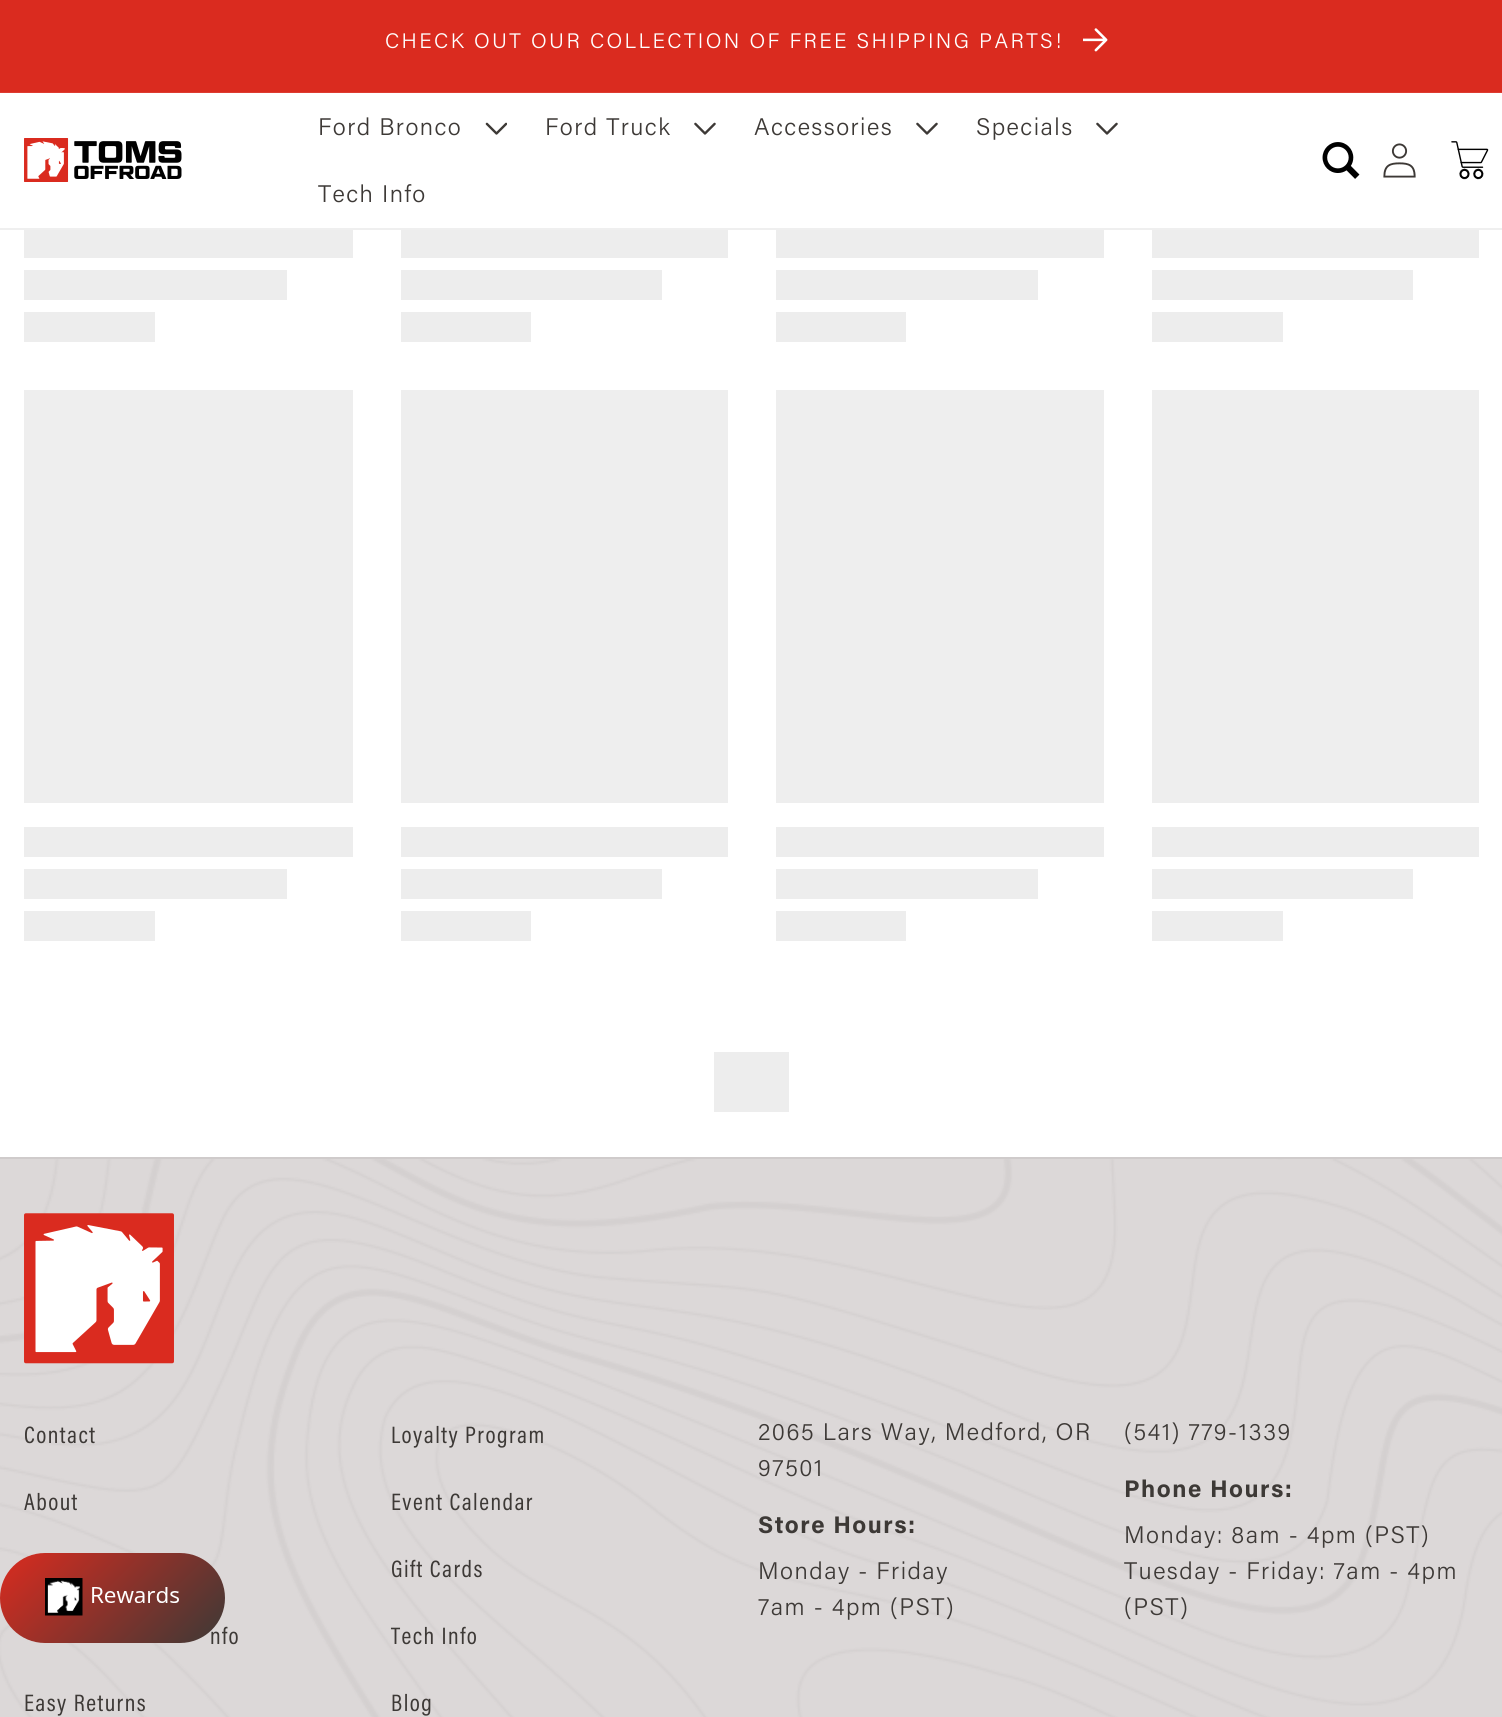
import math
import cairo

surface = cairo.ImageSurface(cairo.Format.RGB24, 1502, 1717)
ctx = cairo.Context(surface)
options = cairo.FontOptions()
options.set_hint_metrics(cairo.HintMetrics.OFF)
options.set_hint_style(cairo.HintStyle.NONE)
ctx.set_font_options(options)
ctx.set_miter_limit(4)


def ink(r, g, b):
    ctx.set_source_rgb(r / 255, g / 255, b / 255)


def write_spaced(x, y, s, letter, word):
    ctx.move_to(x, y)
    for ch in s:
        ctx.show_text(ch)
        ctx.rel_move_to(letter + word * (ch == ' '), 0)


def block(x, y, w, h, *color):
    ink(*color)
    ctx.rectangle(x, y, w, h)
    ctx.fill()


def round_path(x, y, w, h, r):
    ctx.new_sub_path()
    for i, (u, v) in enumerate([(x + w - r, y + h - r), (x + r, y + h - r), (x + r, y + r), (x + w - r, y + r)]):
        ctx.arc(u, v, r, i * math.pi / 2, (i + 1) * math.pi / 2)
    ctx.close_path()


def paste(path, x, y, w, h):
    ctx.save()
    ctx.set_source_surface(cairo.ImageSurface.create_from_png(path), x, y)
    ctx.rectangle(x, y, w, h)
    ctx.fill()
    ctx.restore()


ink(255, 255, 255)
ctx.paint()
block(0, 0, 1502, 92, 218, 43, 31)
block(0, 92, 1502, 1, 221, 60, 49)
ctx.select_font_face("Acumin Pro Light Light")
ctx.set_font_size(21)
ink(255, 255, 255)
write_spaced(385, 48, "CHECK OUT OUR COLLECTION OF FREE SHIPPING PARTS!", 2.4, 0)
paste("pic1.png", 1083, 28, 25, 24)
block(0, 228, 1502, 2, 239, 239, 239)
paste("pic2.png", 24, 138, 158, 44)
ctx.set_font_size(24)
ink(61, 57, 54)
write_spaced(318, 135, "Ford Bronco", 1.45, 0)
paste("pic3.png", 485, 122, 22, 13)
write_spaced(545, 135, "Ford Truck", 1.45, 0)
paste("pic4.png", 694, 122, 22, 13)
write_spaced(754, 135, "Accessories", 1.45, 0)
paste("pic4.png", 916, 122, 22, 13)
write_spaced(976, 135, "Specials", 1.45, 0)
paste("pic4.png", 1096, 122, 22, 13)
write_spaced(318, 202, "Tech Info", 1.45, 0)
paste("pic5.png", 1322, 142, 38, 37)
paste("pic6.png", 1383, 143, 33, 35)
paste("pic7.png", 1451, 141, 38, 39)
block(24, 230, 329, 28, 237, 237, 237)
block(24, 270, 263, 30, 237, 237, 237)
block(24, 312, 131, 30, 237, 237, 237)
block(401, 230, 327, 28, 237, 237, 237)
block(401, 270, 261, 30, 237, 237, 237)
block(401, 312, 130, 30, 237, 237, 237)
block(776, 230, 328, 28, 237, 237, 237)
block(776, 270, 262, 30, 237, 237, 237)
block(776, 312, 130, 30, 237, 237, 237)
block(1152, 230, 327, 28, 237, 237, 237)
block(1152, 270, 261, 30, 237, 237, 237)
block(1152, 312, 131, 30, 237, 237, 237)
block(24, 390, 329, 413, 238, 238, 238)
block(24, 827, 329, 30, 237, 237, 237)
block(24, 869, 263, 30, 237, 237, 237)
block(24, 911, 131, 30, 237, 237, 237)
block(401, 390, 327, 413, 238, 238, 238)
block(401, 827, 327, 30, 237, 237, 237)
block(401, 869, 261, 30, 237, 237, 237)
block(401, 911, 130, 30, 237, 237, 237)
block(776, 390, 328, 413, 238, 238, 238)
block(776, 827, 328, 30, 237, 237, 237)
block(776, 869, 262, 30, 237, 237, 237)
block(776, 911, 130, 30, 237, 237, 237)
block(1152, 390, 327, 413, 238, 238, 238)
block(1152, 827, 327, 30, 237, 237, 237)
block(1152, 869, 261, 30, 237, 237, 237)
block(1152, 911, 131, 30, 237, 237, 237)
block(714, 1052, 75, 60, 237, 237, 237)
block(0, 1159, 1502, 558, 220, 216, 216)
paste("pic8.png", 0, 1159, 1502, 558)
block(0, 1157, 1502, 2, 207, 203, 203)
paste("pic9.png", 24, 1213, 150, 151)
ctx.select_font_face("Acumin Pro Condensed")
ink(61, 57, 54)
write_spaced(24, 1443, "Contact", 1.45, 0)
write_spaced(24, 1510, "About", 1.45, 0)
write_spaced(210, 1644, "nfo", 1.45, 0)
write_spaced(24, 1711, "Easy Returns", 1.45, 0)
write_spaced(391, 1443, "Loyalty Program", 1.45, 0)
write_spaced(391, 1510, "Event Calendar", 1.45, 0)
write_spaced(391, 1577, "Gift Cards", 1.45, 0)
write_spaced(391, 1644, "Tech Info", 1.45, 0)
write_spaced(391, 1711, "Blog", 1.45, 0)
ctx.select_font_face("Acumin Pro Light Light")
write_spaced(758, 1440, "2065 Lars Way, Medford, OR", 1.45, 0)
write_spaced(758, 1476, "97501", 1.45, 0)
ctx.select_font_face("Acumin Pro", cairo.FontSlant.NORMAL, cairo.FontWeight.BOLD)
write_spaced(758, 1533, "Store Hours:", 1.45, 0)
ctx.select_font_face("Acumin Pro Light Light")
write_spaced(758, 1579, "Monday - Friday", 1.45, 0)
write_spaced(758, 1615, "7am - 4pm (PST)", 1.45, 0)
write_spaced(1124, 1440, "(541) 779-1339", 1.45, 0)
ctx.select_font_face("Acumin Pro", cairo.FontSlant.NORMAL, cairo.FontWeight.BOLD)
write_spaced(1124, 1497, "Phone Hours:", 1.45, 0)
ctx.select_font_face("Acumin Pro Light Light")
write_spaced(1124, 1543, "Monday: 8am - 4pm (PST)", 1.45, 0)
write_spaced(1124, 1579, "Tuesday - Friday: 7am - 4pm", 1.45, 0)
write_spaced(1124, 1615, "(PST)", 1.45, 0)
gradient = cairo.LinearGradient(34, 1519, 191, 1676)
gradient.add_color_stop_rgba(0, 0.855, 0.169, 0.122, 1)
gradient.add_color_stop_rgba(1, 0.239, 0.224, 0.212, 1)
ctx.set_source(gradient)
round_path(0, 1553, 225, 90, 45)
ctx.fill()
paste("pic10.png", 45, 1578, 134, 38)
surface.write_to_png("screenshot.png")
